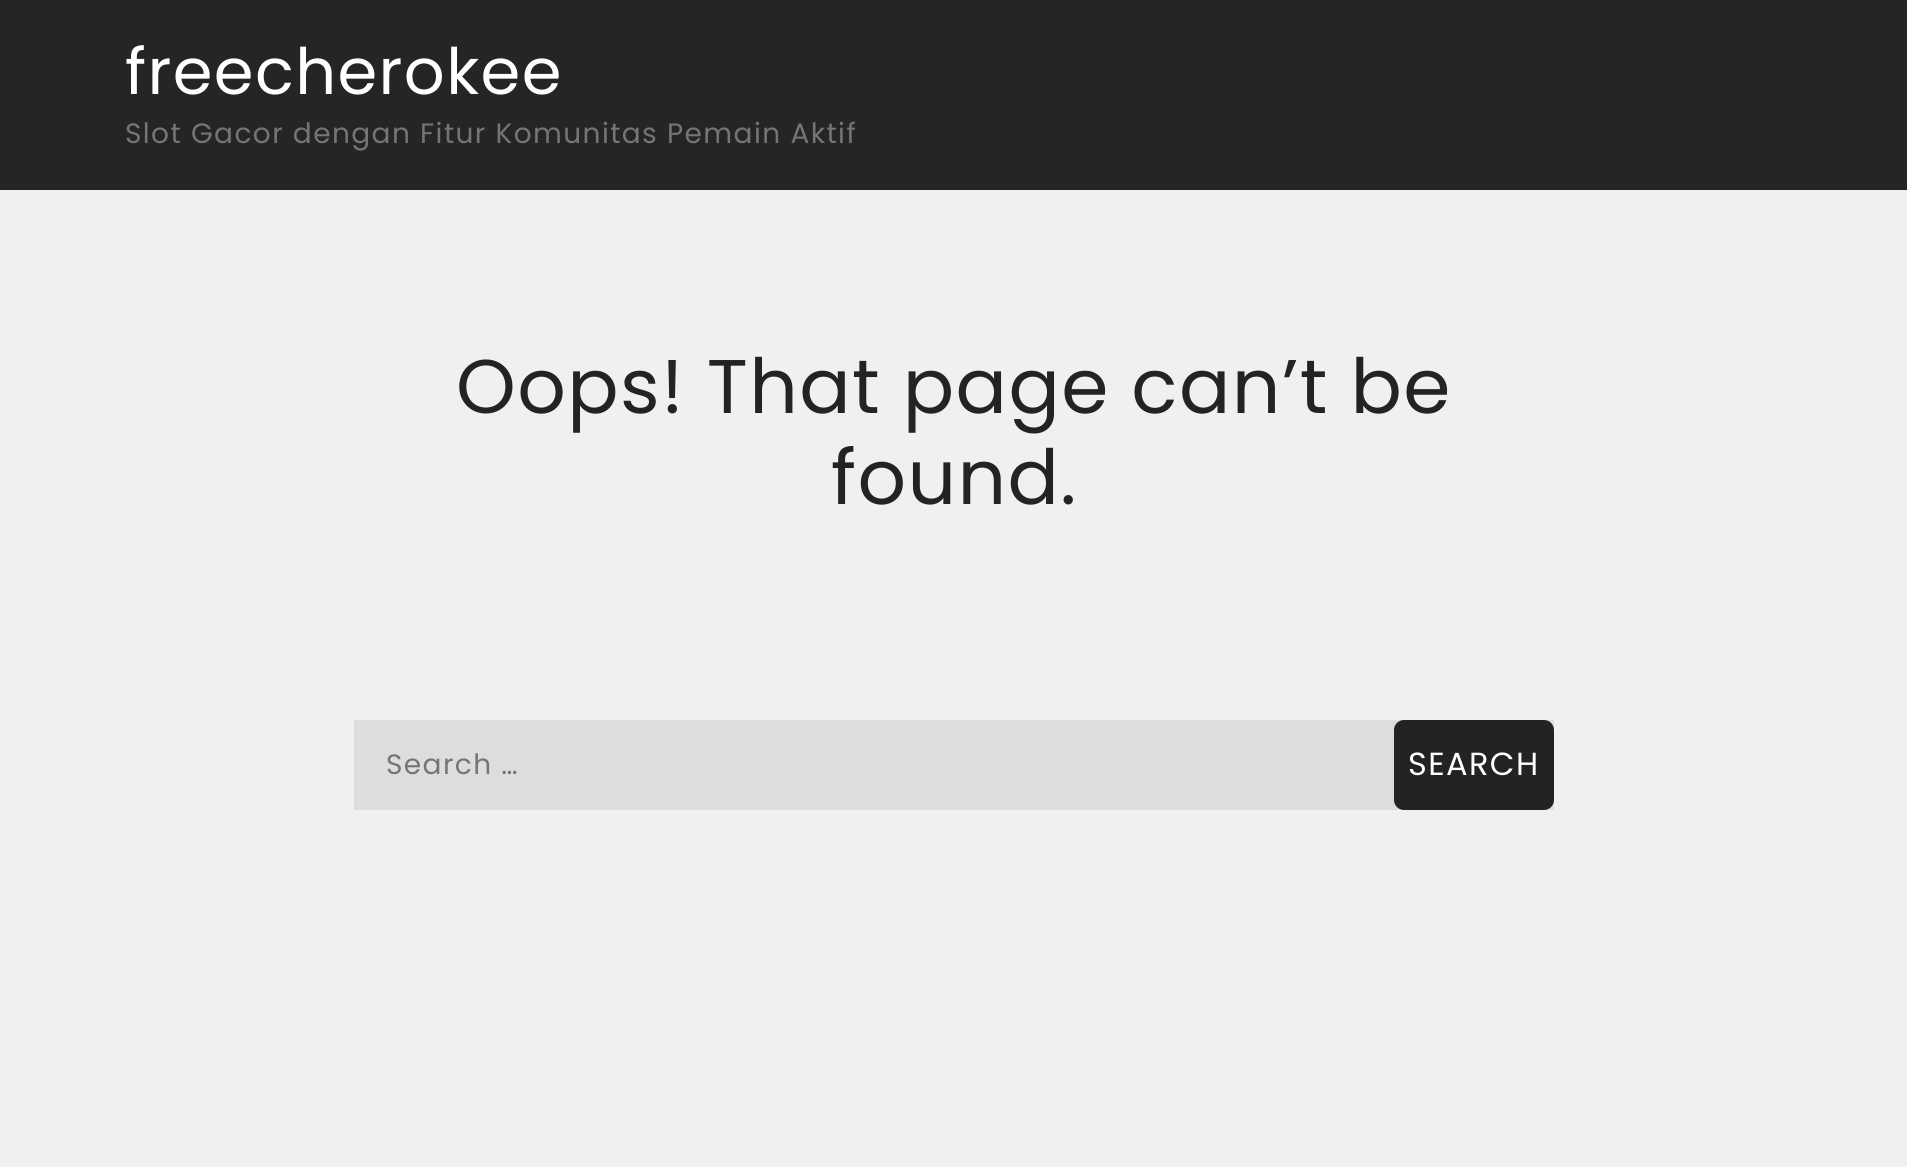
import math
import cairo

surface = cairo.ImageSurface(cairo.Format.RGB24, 1907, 1167)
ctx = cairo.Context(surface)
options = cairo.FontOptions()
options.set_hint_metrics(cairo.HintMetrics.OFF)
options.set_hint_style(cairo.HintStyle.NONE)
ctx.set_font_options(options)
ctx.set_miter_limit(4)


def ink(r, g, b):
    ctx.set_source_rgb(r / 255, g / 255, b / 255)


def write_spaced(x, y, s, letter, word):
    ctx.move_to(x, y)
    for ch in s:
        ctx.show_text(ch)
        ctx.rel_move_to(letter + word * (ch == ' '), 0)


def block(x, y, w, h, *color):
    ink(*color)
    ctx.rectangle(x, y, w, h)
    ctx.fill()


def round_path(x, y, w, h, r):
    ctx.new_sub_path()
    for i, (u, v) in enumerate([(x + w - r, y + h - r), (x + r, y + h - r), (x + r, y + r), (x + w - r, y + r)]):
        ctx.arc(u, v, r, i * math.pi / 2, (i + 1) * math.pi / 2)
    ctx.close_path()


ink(240, 240, 240)
ctx.paint()
block(0, 0, 1907, 190, 38, 37, 37)
ctx.select_font_face("Poppins")
ctx.set_font_size(64)
ink(255, 255, 255)
write_spaced(125, 94, "freecherokee", 1.4, 0)
ctx.set_font_size(28)
ink(117, 117, 117)
write_spaced(125, 143, "Slot Gacor dengan Fitur Komunitas Pemain Aktif", 1.4, 0)
ctx.set_font_size(76)
ink(35, 35, 35)
write_spaced(456, 413, "Oops! That page can’t be", 1.4, 0)
write_spaced(831, 504, "found.", 1.4, 0)
block(354, 720, 1200, 90, 221, 221, 221)
ctx.set_font_size(28)
ink(117, 117, 117)
write_spaced(386, 774, "Search …", 1.4, 0)
ink(35, 35, 35)
round_path(1394, 720, 160, 90, 10)
ctx.fill()
ctx.set_font_size(32)
ink(255, 255, 255)
write_spaced(1408, 775, "SEARCH", 1.4, 0)
surface.write_to_png("screenshot.png")
